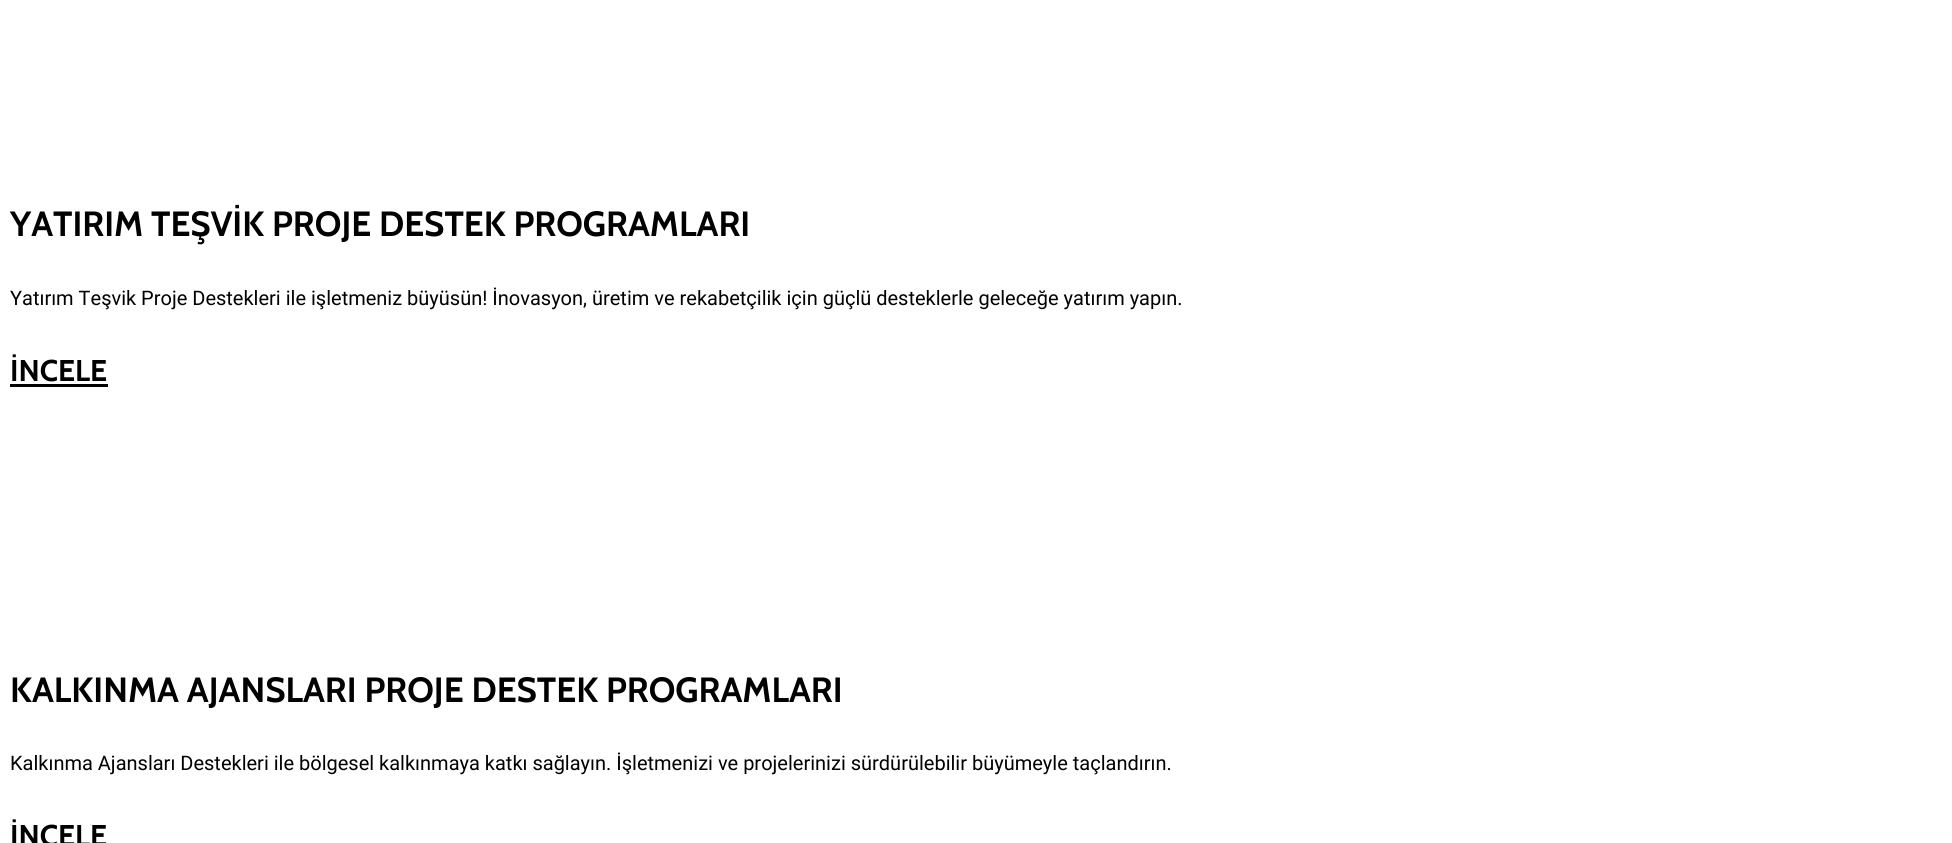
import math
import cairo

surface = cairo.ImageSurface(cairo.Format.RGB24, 1952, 843)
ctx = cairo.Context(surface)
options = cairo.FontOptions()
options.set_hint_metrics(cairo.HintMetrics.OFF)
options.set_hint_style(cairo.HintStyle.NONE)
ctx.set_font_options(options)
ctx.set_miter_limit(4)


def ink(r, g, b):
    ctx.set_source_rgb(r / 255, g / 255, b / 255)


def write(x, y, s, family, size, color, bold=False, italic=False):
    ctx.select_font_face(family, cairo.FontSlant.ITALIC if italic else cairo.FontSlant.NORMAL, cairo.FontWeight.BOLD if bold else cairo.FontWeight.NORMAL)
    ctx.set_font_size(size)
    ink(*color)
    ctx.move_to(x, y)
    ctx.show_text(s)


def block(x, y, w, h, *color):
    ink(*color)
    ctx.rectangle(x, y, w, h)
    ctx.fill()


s1 = dict(family="Cabin", size=35, color=(0, 0, 0), bold=True)
s2 = dict(family="Roboto", size=20, color=(0, 0, 0))
s3 = dict(family="Cabin", size=30, color=(0, 0, 0), bold=True)

ink(255, 255, 255)
ctx.paint()
write(10, 236, "YATIRIM TEŞVİK PROJE DESTEK PROGRAMLARI", **s1)
write(10, 305, "Yatırım Teşvik Proje Destekleri ile işletmeniz büyüsün! İnovasyon, üretim ve rekabetçilik için güçlü desteklerle geleceğe yatırım yapın.", **s2)
write(10, 381, "İNCELE", **s3)
block(10, 384, 98, 3, 0, 0, 0)
write(10, 702, "KALKINMA AJANSLARI PROJE DESTEK PROGRAMLARI", **s1)
write(10, 770, "Kalkınma Ajansları Destekleri ile bölgesel kalkınmaya katkı sağlayın. İşletmenizi ve projelerinizi sürdürülebilir büyümeyle taçlandırın.", **s2)
write(10, 846, "İNCELE", **s3)
surface.write_to_png("screenshot.png")
